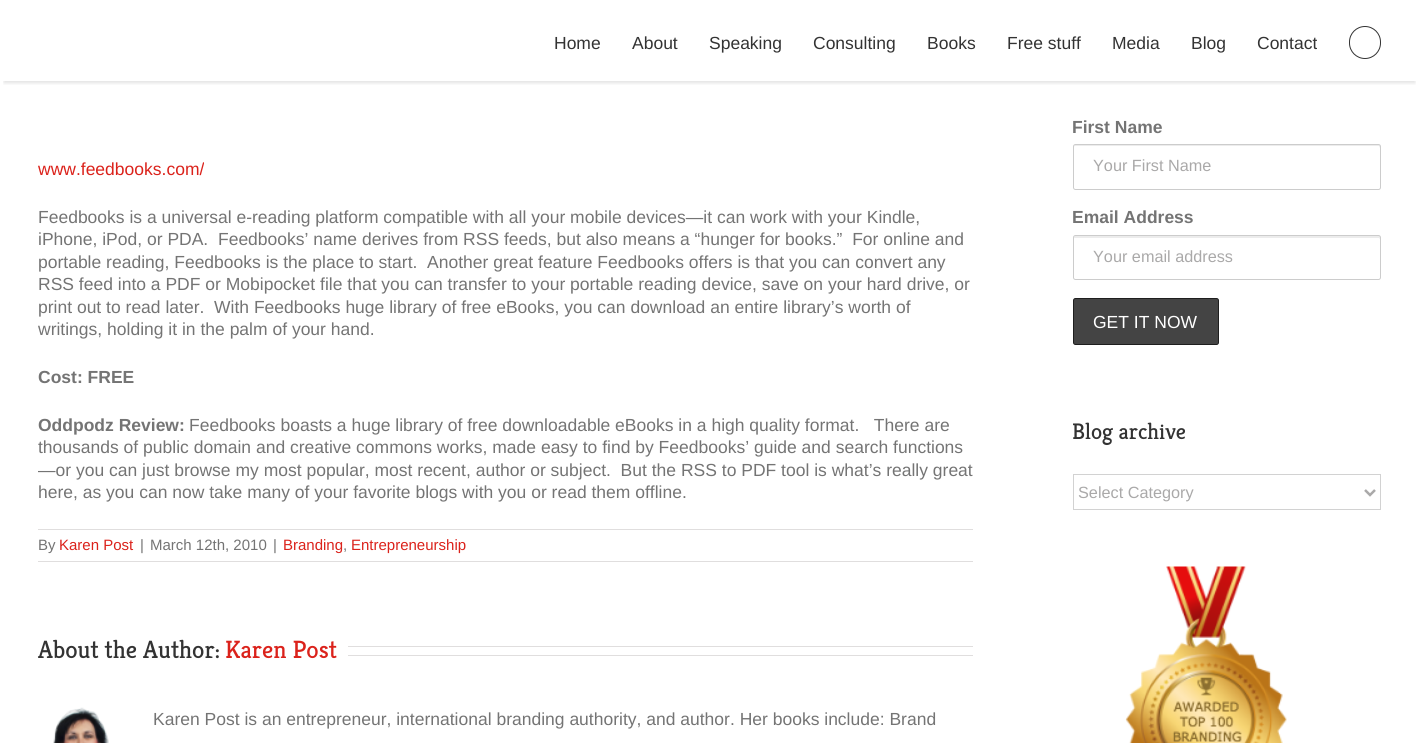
import math
import cairo

surface = cairo.ImageSurface(cairo.Format.RGB24, 1418, 743)
ctx = cairo.Context(surface)
options = cairo.FontOptions()
options.set_hint_metrics(cairo.HintMetrics.OFF)
options.set_hint_style(cairo.HintStyle.NONE)
ctx.set_font_options(options)
ctx.set_miter_limit(4)


def ink(r, g, b):
    ctx.set_source_rgb(r / 255, g / 255, b / 255)


def write(x, y, s, family, size, color, bold=False, italic=False):
    ctx.select_font_face(family, cairo.FontSlant.ITALIC if italic else cairo.FontSlant.NORMAL, cairo.FontWeight.BOLD if bold else cairo.FontWeight.NORMAL)
    ctx.set_font_size(size)
    ink(*color)
    ctx.move_to(x, y)
    ctx.show_text(s)


def block(x, y, w, h, *color):
    ink(*color)
    ctx.rectangle(x, y, w, h)
    ctx.fill()


def round_path(x, y, w, h, r):
    ctx.new_sub_path()
    for i, (u, v) in enumerate([(x + w - r, y + h - r), (x + r, y + h - r), (x + r, y + r), (x + w - r, y + r)]):
        ctx.arc(u, v, r, i * math.pi / 2, (i + 1) * math.pi / 2)
    ctx.close_path()


def blur_box(x, y, w, h, r, blur, alpha):
    ctx.push_group_with_content(cairo.Content.ALPHA)
    ctx.set_operator(cairo.Operator.SOURCE)
    for i in range(15, -16, -2):
        e = blur * i / 6
        if min(w, h) + 2 * e > 0:
            ctx.set_source_rgba(0, 0, 0, alpha * math.erfc((i - 1) / 8.5) / 2)
            round_path(x - e, y - e, w + 2 * e, h + 2 * e, max(0, min(r + e + blur * .6, min(w, h) / 2 + e)))
            ctx.fill()
    ctx.mask(ctx.pop_group())


def paste(path, x, y, w, h):
    ctx.save()
    ctx.set_source_surface(cairo.ImageSurface.create_from_png(path), x, y)
    ctx.rectangle(x, y, w, h)
    ctx.fill()
    ctx.restore()


s1 = dict(family="Liberation Sans", size=17.5, color=(51, 51, 51))
s2 = dict(family="Liberation Sans", size=17.5, color=(219, 34, 27))
s3 = dict(family="Liberation Sans", size=17.5, color=(116, 116, 116))
s4 = dict(family="Liberation Sans", size=17.5, color=(116, 116, 116), bold=True)
s5 = dict(family="Liberation Sans", size=15, color=(116, 116, 116))
s6 = dict(family="Liberation Sans", size=15, color=(219, 34, 27))
s7 = dict(family="Kreon Light", size=25, color=(51, 51, 51))
s8 = dict(family="Kreon Light", size=25, color=(219, 34, 27))
s9 = dict(family="Liberation Sans", size=16.25, color=(170, 169, 169))
s10 = dict(family="Liberation Sans", size=17.5, color=(255, 255, 255))
s11 = dict(family="Kreon Light", size=22.5, color=(51, 51, 51))

ink(255, 255, 255)
ctx.paint()
ctx.save()
ctx.rectangle(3, 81, 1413, 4)
ctx.clip()
ink(0, 0, 0)
blur_box(4, 9, 1411, 74, 0, 2, 0.12)
ctx.restore()
write(554, 49, "Home", **s1)
write(632, 49, "About", **s1)
write(709, 49, "Speaking", **s1)
write(813, 49, "Consulting", **s1)
write(927, 49, "Books", **s1)
write(1007, 49, "Free stuff", **s1)
write(1112, 49, "Media", **s1)
write(1191, 49, "Blog", **s1)
write(1257, 49, "Contact", **s1)
round_path(1349.5, 26.5, 31, 32, 15.5)
ctx.set_line_width(1)
ctx.stroke()
write(38, 175, "www.feedbooks.com/", **s2)
write(38, 223, "Feedbooks is a universal e-reading platform compatible with all your mobile devices—it can work with your Kindle,", **s3)
write(38, 245, "iPhone, iPod, or PDA.  Feedbooks’ name derives from RSS feeds, but also means a “hunger for books.”  For online and", **s3)
write(38, 268, "portable reading, Feedbooks is the place to start.  Another great feature Feedbooks offers is that you can convert any", **s3)
write(38, 290, "RSS feed into a PDF or Mobipocket file that you can transfer to your portable reading device, save on your hard drive, or", **s3)
write(38, 313, "print out to read later.  With Feedbooks huge library of free eBooks, you can download an entire library’s worth of", **s3)
write(38, 335, "writings, holding it in the palm of your hand.", **s3)
write(38, 383, "Cost: FREE", **s4)
write(38, 431, "Oddpodz Review:", **s4)
write(189, 431, "Feedbooks boasts a huge library of free downloadable eBooks in a high quality format.   There are", **s3)
write(38, 453, "thousands of public domain and creative commons works, made easy to find by Feedbooks’ guide and search functions", **s3)
write(38, 476, "—or you can just browse my most popular, most recent, author or subject.  But the RSS to PDF tool is what’s really great", **s3)
write(38, 498, "here, as you can now take many of your favorite blogs with you or read them offline.", **s3)
block(38, 529, 935, 1, 224, 222, 222)
block(38, 561, 935, 1, 224, 222, 222)
write(38, 550, "By", **s5)
write(59, 550, "Karen Post", **s6)
write(140, 550, "|", **s5)
write(150, 550, "March 12th, 2010", **s5)
write(273, 550, "|", **s5)
write(283, 550, "Branding", **s6)
write(343, 550, ",", **s5)
write(351, 550, "Entrepreneurship", **s6)
write(38, 658, "About the Author:", **s7)
write(225, 658, "Karen Post", **s8)
block(348, 646, 625, 1, 224, 222, 222)
block(348, 655, 625, 1, 224, 222, 222)
paste("pic1.png", 53, 707, 56, 36)
write(153, 725, "Karen Post is an entrepreneur, international branding authority, and author. Her books include: Brand", **s3)
write(1072, 133, "First Name", **s4)
ink(236, 236, 236)
ctx.new_path()
ctx.move_to(1075, 146)
ctx.line_to(1379, 146)
ctx.line_to(1380, 148)
ctx.line_to(1380, 145)
ctx.line_to(1075, 145)
ctx.curve_to(1074, 145, 1074, 147, 1074, 148)
ctx.curve_to(1074, 147, 1074, 146, 1075, 146)
ctx.close_path()
ctx.fill()
round_path(1073.5, 144.5, 307, 45, 2)
ink(204, 204, 204)
ctx.stroke()
write(1093, 171, "Your First Name", **s9)
write(1072, 223, "Email Address", **s4)
ink(236, 236, 236)
ctx.new_path()
ctx.move_to(1075, 238)
ctx.line_to(1379, 238)
ctx.line_to(1380, 239)
ctx.line_to(1380, 236)
ctx.line_to(1075, 236)
ctx.curve_to(1074, 236, 1074, 238, 1074, 239)
ctx.curve_to(1074, 238, 1074, 238, 1075, 238)
ctx.close_path()
ctx.fill()
round_path(1073.5, 235.5, 307, 44, 2)
ink(204, 204, 204)
ctx.stroke()
write(1093, 262, "Your email address", **s9)
ink(68, 68, 68)
round_path(1073.5, 298.5, 145, 46, 2)
ctx.fill_preserve()
ink(30, 30, 30)
ctx.stroke()
write(1093, 328, "GET IT NOW", **s10)
write(1072, 439, "Blog archive", **s11)
ctx.rectangle(1073.5, 474.5, 307, 35)
ink(210, 210, 210)
ctx.stroke()
ctx.new_path()
ctx.move_to(1365, 490)
ctx.line_to(1370, 495)
ctx.line_to(1375, 490)
ink(170, 169, 169)
ctx.set_line_width(2.5)
ctx.stroke()
write(1078, 498, "Select Category", **s9)
paste("pic2.png", 1125, 566, 162, 177)
surface.write_to_png("screenshot.png")
